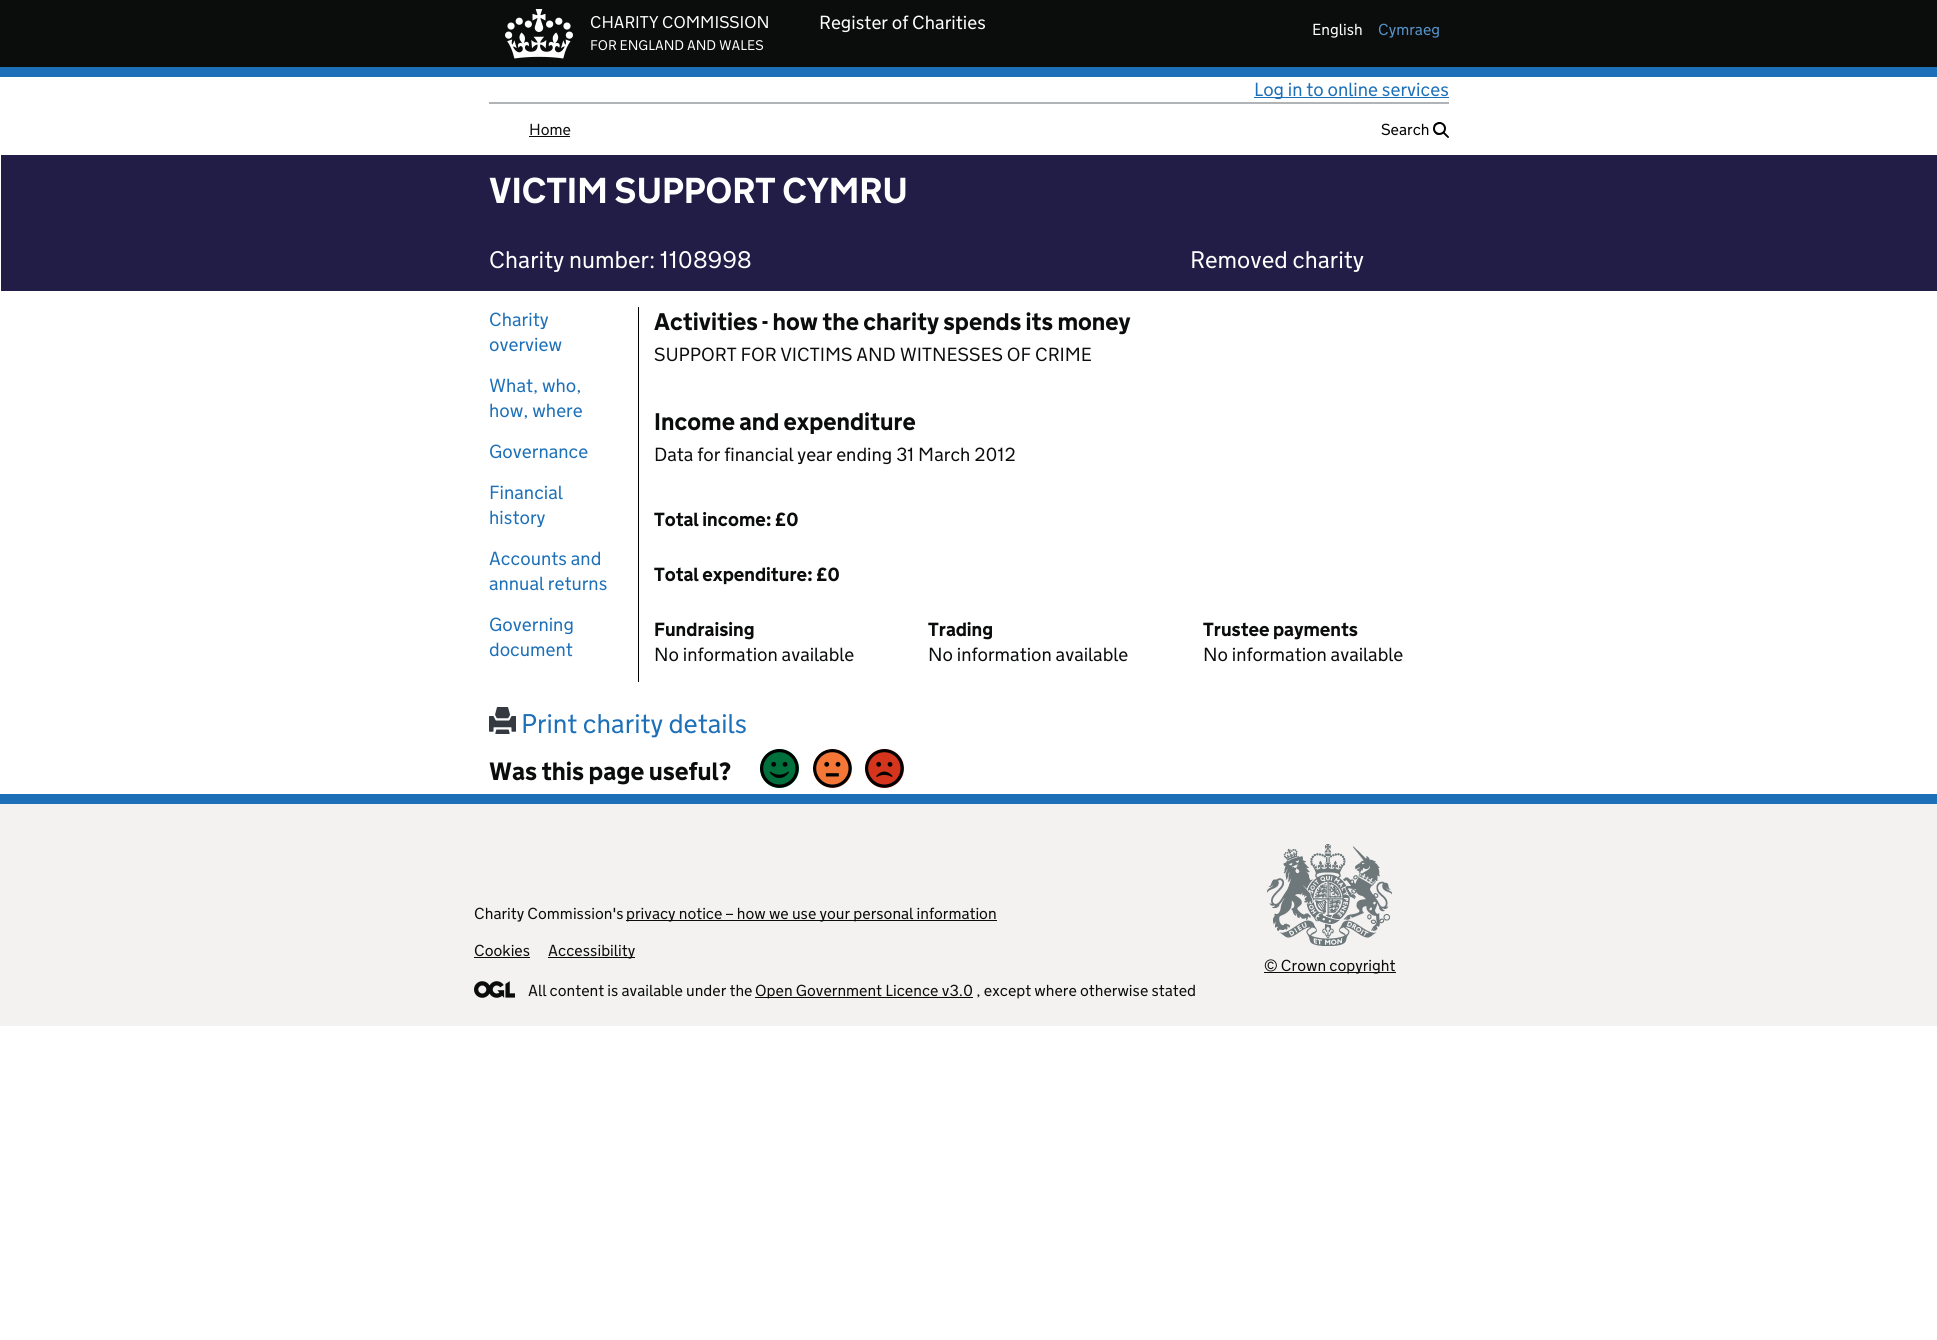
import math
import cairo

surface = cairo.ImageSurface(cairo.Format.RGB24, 1937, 1340)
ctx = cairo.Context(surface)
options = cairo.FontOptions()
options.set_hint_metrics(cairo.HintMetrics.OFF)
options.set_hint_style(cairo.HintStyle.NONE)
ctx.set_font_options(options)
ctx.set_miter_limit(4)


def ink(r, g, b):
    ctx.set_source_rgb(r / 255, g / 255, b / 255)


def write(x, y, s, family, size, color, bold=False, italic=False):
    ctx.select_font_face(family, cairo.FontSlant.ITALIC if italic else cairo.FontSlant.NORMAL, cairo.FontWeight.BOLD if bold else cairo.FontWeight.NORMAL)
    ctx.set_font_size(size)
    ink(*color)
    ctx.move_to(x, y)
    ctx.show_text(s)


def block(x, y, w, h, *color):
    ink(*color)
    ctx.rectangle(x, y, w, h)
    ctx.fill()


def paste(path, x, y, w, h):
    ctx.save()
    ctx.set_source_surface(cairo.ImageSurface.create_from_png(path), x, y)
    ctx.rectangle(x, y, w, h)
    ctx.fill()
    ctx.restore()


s1 = dict(family="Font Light", size=17, color=(255, 255, 255))
s2 = dict(family="Font Light", size=14, color=(255, 255, 255))
s3 = dict(family="Font Light", size=19, color=(255, 255, 255))
s4 = dict(family="Font Light", size=16, color=(255, 255, 255))
s5 = dict(family="Font Light", size=16, color=(86, 148, 202))
s6 = dict(family="Font Light", size=19, color=(29, 112, 184))
s7 = dict(family="Font Light", size=16, color=(11, 12, 12))
s8 = dict(family="Font Light", size=16, color=(0, 0, 0))
s9 = dict(family="Font", size=36, color=(255, 255, 255), bold=True)
s10 = dict(family="Font Light", size=24, color=(255, 255, 255))
s11 = dict(family="Font", size=24, color=(11, 12, 12), bold=True)
s12 = dict(family="Font Light", size=19, color=(11, 12, 12))
s13 = dict(family="Font", size=19, color=(11, 12, 12), bold=True)
s14 = dict(family="Font Light", size=27, color=(29, 112, 184))
s15 = dict(family="Font", size=25, color=(11, 12, 12), bold=True)

ink(255, 255, 255)
ctx.paint()
block(0, 0, 1937, 67, 11, 12, 12)
block(0, 67, 1937, 10, 29, 112, 184)
paste("pic1.png", 505, 9, 68, 50)
write(590, 28, "CHARITY COMMISSION", **s1)
write(590, 50, "FOR ENGLAND AND WALES", **s2)
write(819, 29, "Register of Charities", **s3)
write(1312, 35, "English", **s4)
write(1378, 35, "Cymraeg", **s5)
block(489, 102, 960, 2, 177, 180, 182)
block(1254, 97, 195, 1, 29, 112, 184)
write(1254, 96, "Log in to online services", **s6)
write(529, 135, "Home", **s7)
block(529, 136, 41, 1, 11, 12, 12)
write(1381, 135, "Search", **s8)
paste("pic2.png", 1433, 122, 16, 16)
block(1, 155, 1936, 136, 33, 29, 71)
write(489, 203, "VICTIM SUPPORT CYMRU", **s9)
write(489, 268, "Charity number: 1108998", **s10)
write(1190, 268, "Removed charity", **s10)
block(638, 307, 1, 375, 0, 0, 0)
write(489, 326, "Charity", **s6)
write(489, 351, "overview", **s6)
write(489, 392, "What, who,", **s6)
write(489, 417, "how, where", **s6)
write(489, 458, "Governance", **s6)
write(489, 499, "Financial", **s6)
write(489, 524, "history", **s6)
write(489, 565, "Accounts and", **s6)
write(489, 590, "annual returns", **s6)
write(489, 631, "Governing", **s6)
write(489, 656, "document", **s6)
write(654, 330, "Activities - how the charity spends its money", **s11)
write(654, 361, "SUPPORT FOR VICTIMS AND WITNESSES OF CRIME", **s12)
write(654, 430, "Income and expenditure", **s11)
write(654, 461, "Data for financial year ending 31 March 2012", **s12)
write(654, 526, "Total income: £0", **s13)
write(654, 581, "Total expenditure: £0", **s13)
write(654, 636, "Fundraising", **s13)
write(654, 661, "No information available", **s12)
write(928, 636, "Trading", **s13)
write(928, 661, "No information available", **s12)
write(1203, 636, "Trustee payments", **s13)
write(1203, 661, "No information available", **s12)
paste("pic3.png", 489, 707, 27, 27)
write(521, 733, "Print charity details", **s14)
write(489, 780, "Was this page useful?", **s15)
ink(0, 112, 60)
ctx.new_path()
ctx.arc(779.5, 768.5, 19.5, 0, 2 * math.pi)
ctx.fill()
paste("pic4.png", 760, 749, 39, 39)
ink(244, 119, 56)
ctx.arc(832.5, 768.5, 19.5, 0, 2 * math.pi)
ctx.fill()
paste("pic5.png", 813, 749, 39, 39)
ink(212, 53, 28)
ctx.arc(884.5, 768.5, 19.5, 0, 2 * math.pi)
ctx.fill()
paste("pic6.png", 865, 749, 39, 39)
block(0, 804, 1937, 222, 243, 242, 241)
block(0, 794, 1937, 10, 29, 112, 184)
write(474, 919, "Charity Commission's", **s7)
block(626, 920, 371, 1, 11, 12, 12)
write(626, 919, "privacy notice – how we use your personal information", **s7)
write(474, 956, "Cookies", **s7)
block(474, 957, 56, 1, 11, 12, 12)
block(548, 957, 87, 1, 11, 12, 12)
write(548, 956, "Accessibility", **s7)
paste("pic7.png", 474, 981, 41, 17)
write(528, 996, "All content is available under the", **s7)
block(755, 997, 218, 1, 11, 12, 12)
write(755, 996, "Open Government Licence v3.0 , except where otherwise stated", **s7)
paste("pic8.png", 1267, 844, 125, 102)
block(1264, 972, 132, 1, 11, 12, 12)
write(1264, 971, "© Crown copyright", **s7)
surface.write_to_png("screenshot.png")
